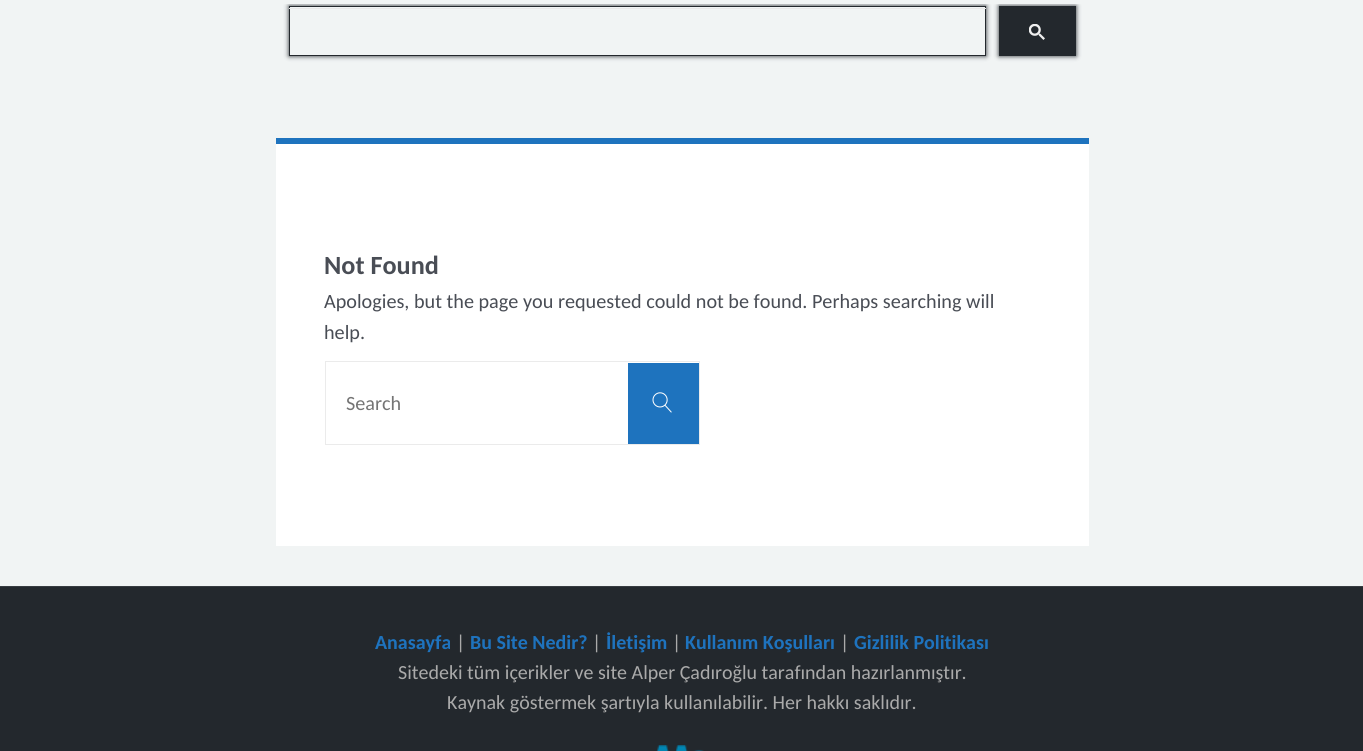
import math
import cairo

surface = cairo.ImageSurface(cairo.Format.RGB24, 1363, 751)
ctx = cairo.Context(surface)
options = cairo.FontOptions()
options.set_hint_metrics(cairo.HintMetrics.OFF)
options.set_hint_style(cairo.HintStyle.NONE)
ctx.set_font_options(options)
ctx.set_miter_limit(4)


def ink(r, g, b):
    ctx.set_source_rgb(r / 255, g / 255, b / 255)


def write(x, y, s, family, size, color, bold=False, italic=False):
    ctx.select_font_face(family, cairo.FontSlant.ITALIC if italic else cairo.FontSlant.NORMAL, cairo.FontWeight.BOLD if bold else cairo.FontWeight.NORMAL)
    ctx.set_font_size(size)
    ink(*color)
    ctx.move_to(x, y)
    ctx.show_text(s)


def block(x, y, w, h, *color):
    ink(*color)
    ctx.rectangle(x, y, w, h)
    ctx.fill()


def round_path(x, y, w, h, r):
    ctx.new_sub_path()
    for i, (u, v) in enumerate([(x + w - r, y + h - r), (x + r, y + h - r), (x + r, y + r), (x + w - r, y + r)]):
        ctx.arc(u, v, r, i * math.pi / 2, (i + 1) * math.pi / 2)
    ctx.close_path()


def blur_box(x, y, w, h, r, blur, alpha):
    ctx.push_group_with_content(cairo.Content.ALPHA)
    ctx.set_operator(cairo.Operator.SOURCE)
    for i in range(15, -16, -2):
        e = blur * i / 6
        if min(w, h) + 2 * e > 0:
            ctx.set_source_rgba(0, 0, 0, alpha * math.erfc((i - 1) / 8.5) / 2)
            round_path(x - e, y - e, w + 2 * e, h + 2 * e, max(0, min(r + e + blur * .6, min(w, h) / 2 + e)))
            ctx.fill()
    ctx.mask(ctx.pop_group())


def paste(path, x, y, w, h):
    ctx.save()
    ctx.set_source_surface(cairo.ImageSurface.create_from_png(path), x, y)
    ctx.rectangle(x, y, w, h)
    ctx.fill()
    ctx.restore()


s1 = dict(family="Carlito", size=26.25, color=(73, 77, 85), bold=True)
s2 = dict(family="Carlito", size=20.2, color=(73, 77, 85))
s3 = dict(family="Carlito", size=20.2, color=(117, 117, 117))
s4 = dict(family="Carlito", size=20, color=(30, 115, 190), bold=True)
s5 = dict(family="Carlito", size=20, color=(170, 170, 170))

ink(241, 244, 244)
ctx.paint()
ctx.save()
ctx.rectangle(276, 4, 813, 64)
ctx.clip()
ctx.set_fill_rule(cairo.FillRule.EVEN_ODD)
ctx.new_path()
ctx.move_to(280, 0)
ctx.line_to(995, 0)
ctx.line_to(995, 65)
ctx.line_to(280, 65)
ctx.close_path()
ctx.move_to(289, 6)
ctx.line_to(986, 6)
ctx.line_to(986, 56)
ctx.line_to(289, 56)
ctx.close_path()
ctx.clip()
ink(35, 40, 45)
blur_box(289, 6, 697, 50, 0, 2.5, 1)
ctx.restore()
ctx.rectangle(289.5, 6.5, 696, 49)
ink(35, 40, 45)
ctx.set_line_width(1)
ctx.stroke()
block(289, 8, 697, 1, 233, 233, 233)
ctx.save()
ctx.rectangle(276, 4, 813, 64)
ctx.clip()
ink(35, 40, 45)
blur_box(999, 6, 77, 50, 0, 2.5, 1)
ctx.restore()
block(999, 6, 77, 50, 35, 40, 45)
paste("pic1.png", 1029, 24, 16, 16)
block(276, 144, 813, 402, 255, 255, 255)
block(276, 138, 813, 6, 30, 115, 190)
write(324, 274, "Not Found", **s1)
write(324, 308, "Apologies, but the page you requested could not be found. Perhaps searching will", **s2)
write(324, 339, "help.", **s2)
ctx.rectangle(325.5, 361.5, 374, 83)
ink(235, 235, 235)
ctx.stroke()
block(628, 363, 71, 81, 30, 115, 190)
write(346, 410, "Search", **s3)
paste("pic2.png", 652, 392, 20, 21)
block(0, 587, 1363, 164, 35, 40, 45)
block(0, 586, 1363, 1, 55, 60, 65)
write(375, 649, "Anasayfa", **s4)
write(456, 649, "|", **s5)
write(470, 649, "Bu Site Nedir?", **s4)
write(592, 649, "|", **s5)
write(606, 649, "İletişim", **s4)
write(672, 649, "|", **s5)
write(685, 649, "Kullanım Koşulları", **s4)
write(840, 649, "|", **s5)
write(854, 649, "Gizlilik Politikası", **s4)
write(398, 679, "Sitedeki tüm içerikler ve site Alper Çadıroğlu tarafından hazırlanmıştır.", **s5)
write(447, 709, "Kaynak göstermek şartıyla kullanılabilir. Her hakkı saklıdır.", **s5)
paste("pic3.png", 656, 745, 48, 6)
surface.write_to_png("screenshot.png")
